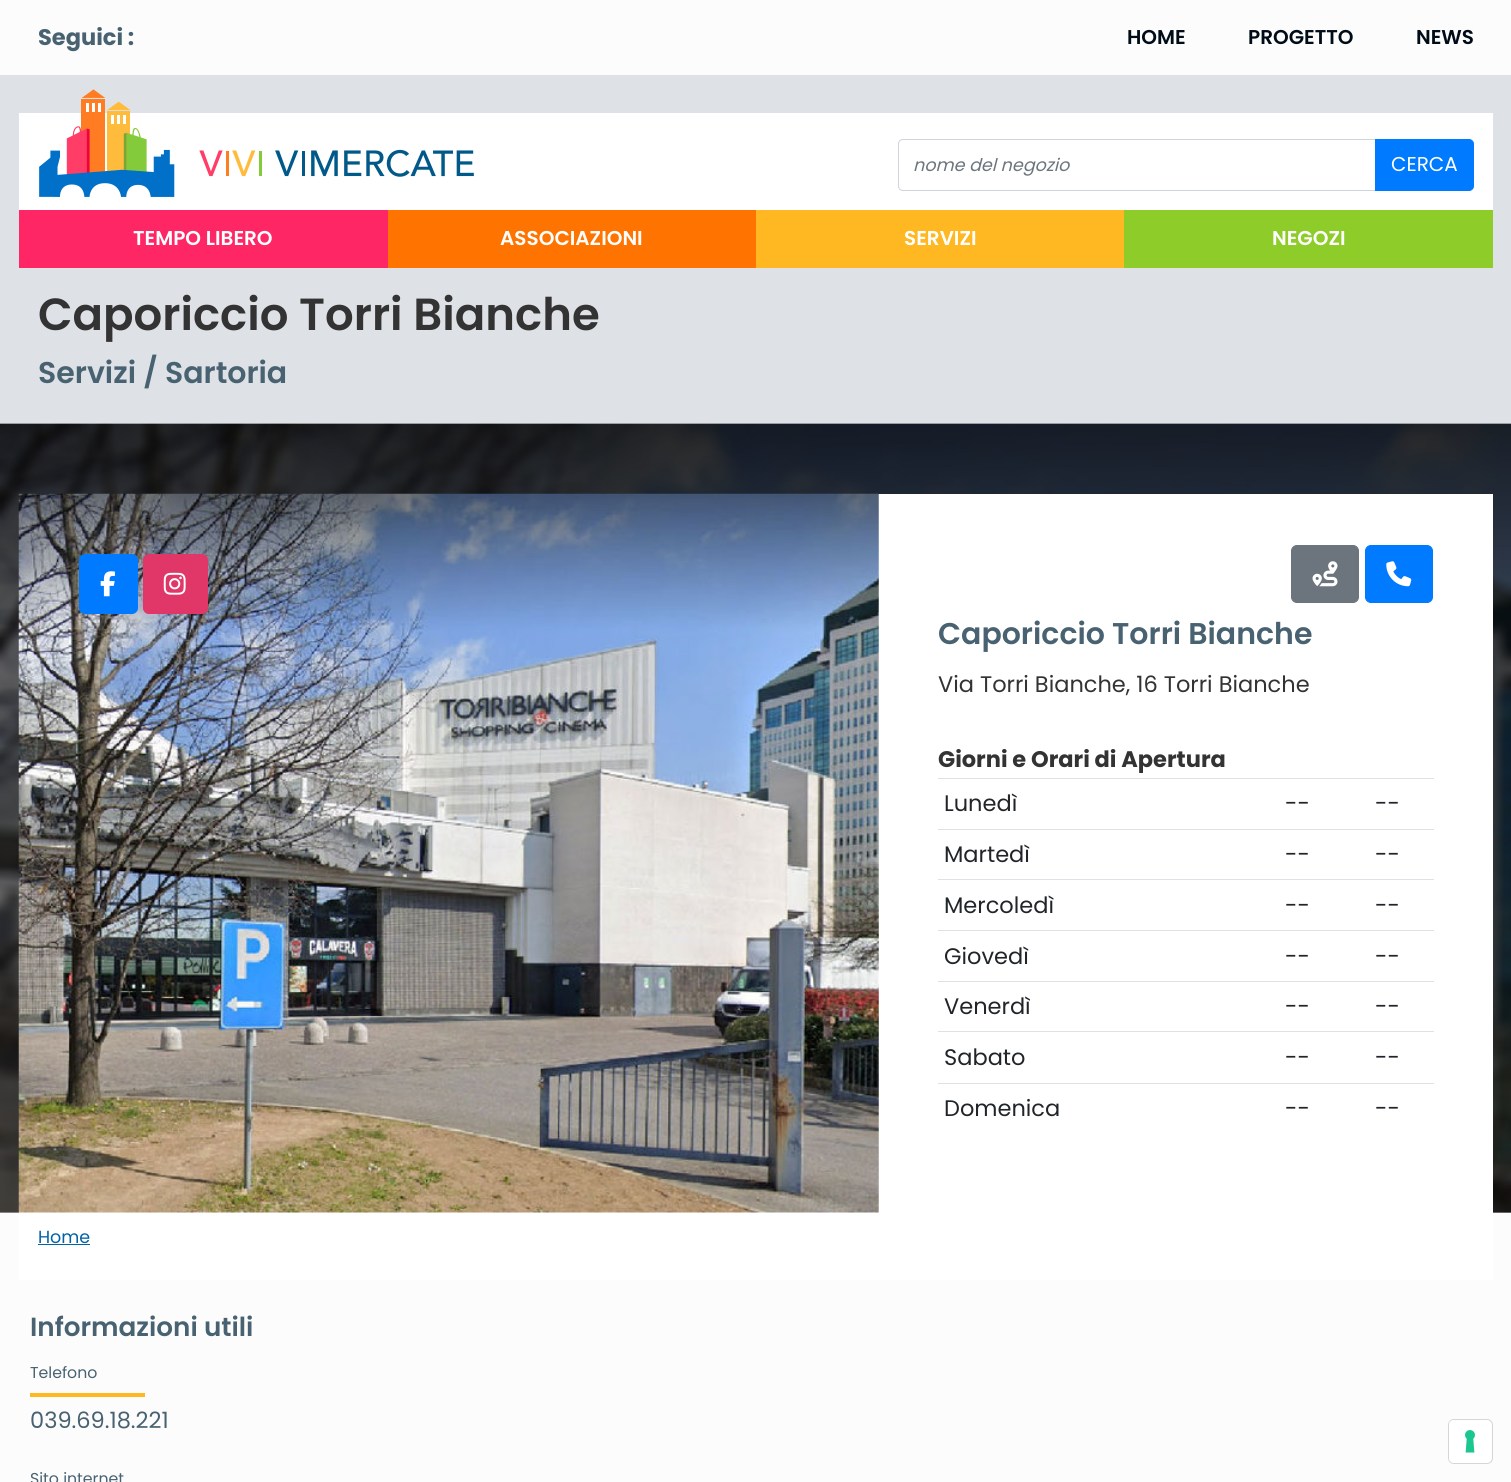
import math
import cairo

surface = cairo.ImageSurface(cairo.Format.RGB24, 1511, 1482)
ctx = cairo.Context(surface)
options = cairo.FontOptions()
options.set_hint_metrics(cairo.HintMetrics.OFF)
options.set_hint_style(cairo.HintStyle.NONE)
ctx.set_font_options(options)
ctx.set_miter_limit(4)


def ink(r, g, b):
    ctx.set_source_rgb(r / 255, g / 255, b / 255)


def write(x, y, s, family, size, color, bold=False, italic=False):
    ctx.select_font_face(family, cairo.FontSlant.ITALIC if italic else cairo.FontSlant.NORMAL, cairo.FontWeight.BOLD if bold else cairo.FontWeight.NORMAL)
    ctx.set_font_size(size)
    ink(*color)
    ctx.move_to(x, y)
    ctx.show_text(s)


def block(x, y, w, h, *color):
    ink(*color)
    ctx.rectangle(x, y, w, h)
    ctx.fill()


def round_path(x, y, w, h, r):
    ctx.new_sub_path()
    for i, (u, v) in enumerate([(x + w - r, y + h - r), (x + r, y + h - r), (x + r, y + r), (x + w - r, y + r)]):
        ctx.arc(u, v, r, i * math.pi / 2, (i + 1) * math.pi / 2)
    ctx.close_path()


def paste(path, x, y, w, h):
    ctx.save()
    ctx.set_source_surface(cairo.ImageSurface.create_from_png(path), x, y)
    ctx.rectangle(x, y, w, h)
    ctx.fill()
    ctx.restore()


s1 = dict(family="Poppins", size=22.5, color=(72, 98, 113), bold=True)
s2 = dict(family="Poppins SemiBold", size=20, color=(0, 12, 24))
s3 = dict(family="Poppins", size=17.5, color=(108, 117, 125), italic=True)
s4 = dict(family="Poppins", size=20, color=(255, 255, 255))
s5 = dict(family="Poppins SemiBold", size=20, color=(255, 255, 255))
s6 = dict(family="Poppins SemiBold", size=45, color=(51, 51, 51))
s7 = dict(family="Poppins SemiBold", size=30, color=(72, 98, 113))
s8 = dict(family="Poppins", size=22.5, color=(51, 51, 51))
s9 = dict(family="Poppins", size=22.5, color=(51, 51, 51), bold=True)
s10 = dict(family="Poppins", size=22.5, color=(33, 37, 41))
s11 = dict(family="Poppins", size=17.5, color=(1, 99, 164))
s12 = dict(family="Poppins SemiBold", size=26.25, color=(72, 98, 113))
s13 = dict(family="Poppins", size=15.75, color=(72, 98, 113))
s14 = dict(family="Poppins", size=22.5, color=(72, 98, 113))

ink(252, 252, 252)
ctx.paint()
write(38, 45, "Seguici :", **s1)
write(1127, 44, "HOME", **s2)
write(1248, 44, "PROGETTO", **s2)
write(1416, 44, "NEWS", **s2)
block(0, 75, 1511, 349, 222, 226, 230)
block(19, 113, 1474, 97, 255, 255, 255)
paste("pic1.png", 39, 89, 435, 108)
ctx.new_path()
ctx.move_to(903, 139.5)
ctx.line_to(1375.5, 139.5)
ctx.line_to(1375.5, 190.5)
ctx.line_to(903, 190.5)
ctx.curve_to(900.5, 190.5, 898.5, 188.5, 898.5, 186)
ctx.line_to(898.5, 144)
ctx.curve_to(898.5, 141.5, 900.5, 139.5, 903, 139.5)
ctx.close_path()
ink(206, 212, 218)
ctx.set_line_width(1)
ctx.stroke()
write(913, 171, "nome del negozio", **s3)
ink(0, 123, 255)
ctx.new_path()
ctx.move_to(1375.5, 139.5)
ctx.line_to(1469, 139.5)
ctx.curve_to(1471.5, 139.5, 1473.5, 141.5, 1473.5, 144)
ctx.line_to(1473.5, 186)
ctx.curve_to(1473.5, 188.5, 1471.5, 190.5, 1469, 190.5)
ctx.line_to(1375.5, 190.5)
ctx.close_path()
ctx.fill_preserve()
ctx.stroke()
write(1391, 171, "CERCA", **s4)
block(19, 210, 369, 58, 255, 38, 101)
write(133, 245, "TEMPO LIBERO", **s5)
block(388, 210, 368, 58, 255, 116, 0)
write(500, 245, "ASSOCIAZIONI", **s5)
block(756, 210, 368, 58, 255, 183, 34)
write(904, 245, "SERVIZI", **s5)
block(1124, 210, 369, 58, 141, 204, 41)
write(1272, 245, "NEGOZI", **s5)
write(38, 330, "Caporiccio Torri Bianche", **s6)
write(38, 383, "Servizi / Sartoria", **s7)
block(0, 1212, 1511, 1, 222, 226, 230)
paste("pic2.png", 0, 423, 1511, 790)
block(19, 494, 1474, 786, 255, 255, 255)
paste("pic3.png", 18, 493, 861, 720)
ink(0, 123, 255)
round_path(79.5, 554.5, 58, 59, 5.5)
ctx.fill_preserve()
ctx.stroke()
paste("pic4.png", 100, 571, 15, 26)
ink(224, 55, 104)
round_path(143.5, 554.5, 64, 59, 5.5)
ctx.fill_preserve()
ctx.stroke()
paste("pic5.png", 163, 572, 23, 23)
ink(108, 117, 125)
round_path(1291.5, 545.5, 67, 57, 5.5)
ctx.fill_preserve()
ctx.stroke()
paste("pic6.png", 1312, 561, 26, 26)
ink(0, 123, 255)
round_path(1365.5, 545.5, 67, 57, 5.5)
ctx.fill_preserve()
ctx.stroke()
paste("pic7.png", 1386, 561, 26, 26)
write(938, 644, "Caporiccio Torri Bianche", **s7)
write(938, 692, "Via Torri Bianche, 16 Torri Bianche", **s8)
write(938, 767, "Giorni e Orari di Apertura", **s9)
write(944, 811, "Lunedì", **s10)
write(1285, 811, "--", **s10)
block(938, 778, 496, 1, 222, 226, 230)
write(1375, 811, "--", **s10)
write(944, 862, "Martedì", **s10)
write(1285, 862, "--", **s10)
block(938, 829, 496, 1, 222, 226, 230)
write(1375, 862, "--", **s10)
write(944, 913, "Mercoledì", **s10)
write(1285, 913, "--", **s10)
block(938, 879, 496, 1, 222, 226, 230)
write(1375, 913, "--", **s10)
write(944, 964, "Giovedì", **s10)
write(1285, 964, "--", **s10)
block(938, 930, 496, 1, 222, 226, 230)
write(1375, 964, "--", **s10)
write(944, 1014, "Venerdì", **s10)
write(1285, 1014, "--", **s10)
block(938, 981, 496, 1, 222, 226, 230)
write(1375, 1014, "--", **s10)
write(944, 1065, "Sabato", **s10)
write(1285, 1065, "--", **s10)
block(938, 1031, 496, 1, 222, 226, 230)
write(1375, 1065, "--", **s10)
write(944, 1116, "Domenica", **s10)
write(1285, 1116, "--", **s10)
block(938, 1083, 496, 1, 222, 226, 230)
write(1375, 1116, "--", **s10)
write(38, 1243, "Home", **s11)
block(38, 1244, 52, 1, 1, 99, 164)
write(30, 1336, "Informazioni utili", **s12)
write(30, 1378, "Telefono", **s13)
block(30, 1393, 115, 4, 255, 183, 34)
write(30, 1428, "039.69.18.221", **s14)
write(30, 1484, "Sito internet", **s13)
round_path(1448.5, 1419.5, 44, 44, 5.5)
ink(214, 214, 214)
ctx.stroke()
ink(255, 255, 255)
round_path(1449, 1420, 42, 43, 5)
ctx.fill()
paste("pic8.png", 1465, 1430, 10, 23)
surface.write_to_png("screenshot.png")
